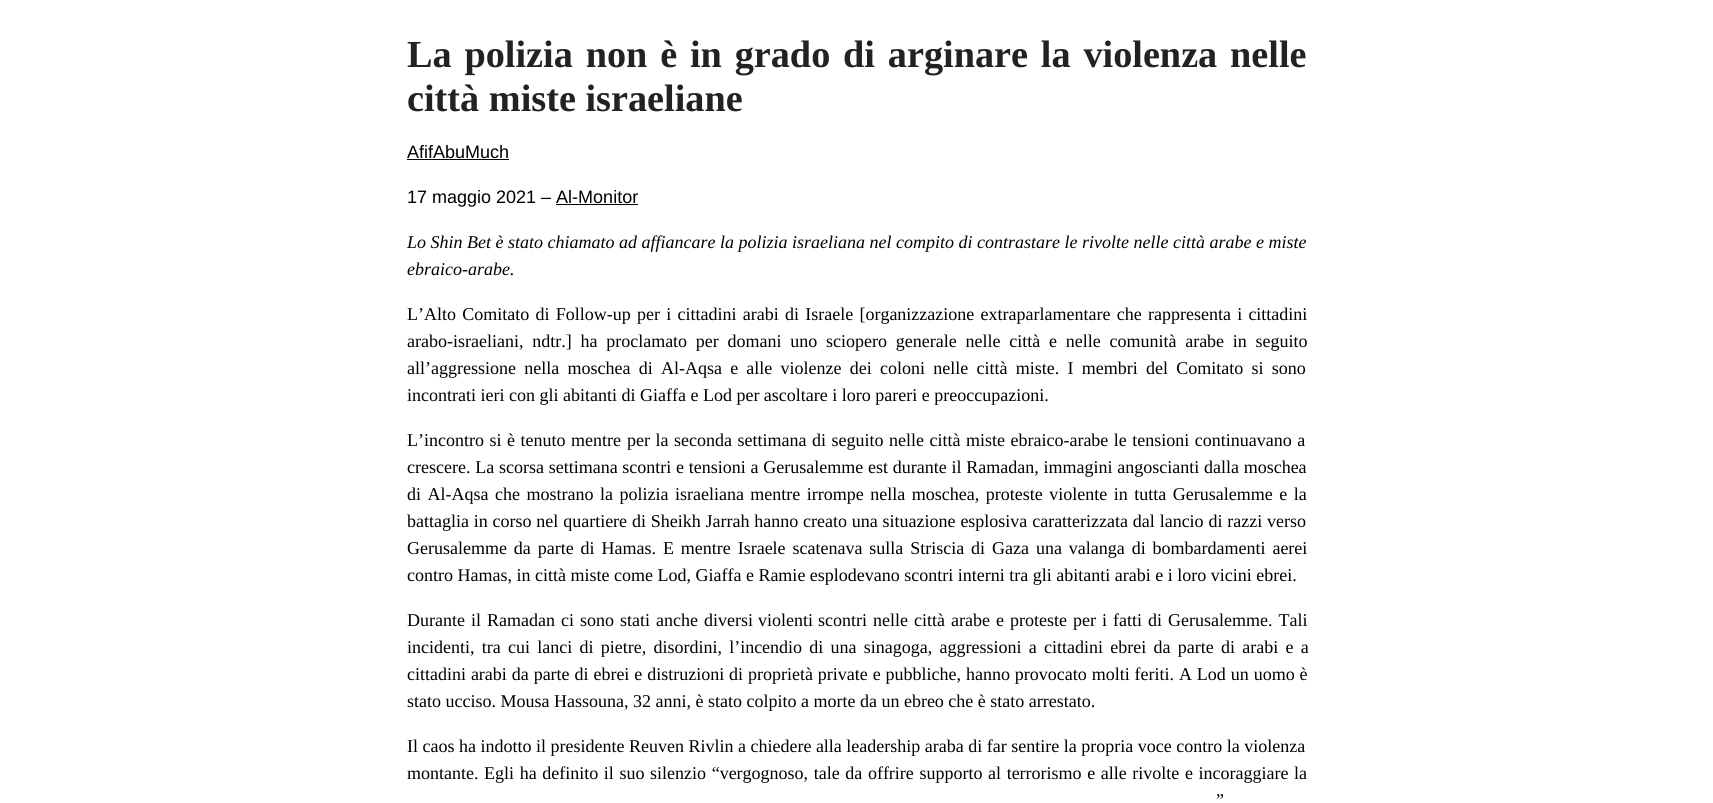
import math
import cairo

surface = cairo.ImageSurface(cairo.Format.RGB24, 1713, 803)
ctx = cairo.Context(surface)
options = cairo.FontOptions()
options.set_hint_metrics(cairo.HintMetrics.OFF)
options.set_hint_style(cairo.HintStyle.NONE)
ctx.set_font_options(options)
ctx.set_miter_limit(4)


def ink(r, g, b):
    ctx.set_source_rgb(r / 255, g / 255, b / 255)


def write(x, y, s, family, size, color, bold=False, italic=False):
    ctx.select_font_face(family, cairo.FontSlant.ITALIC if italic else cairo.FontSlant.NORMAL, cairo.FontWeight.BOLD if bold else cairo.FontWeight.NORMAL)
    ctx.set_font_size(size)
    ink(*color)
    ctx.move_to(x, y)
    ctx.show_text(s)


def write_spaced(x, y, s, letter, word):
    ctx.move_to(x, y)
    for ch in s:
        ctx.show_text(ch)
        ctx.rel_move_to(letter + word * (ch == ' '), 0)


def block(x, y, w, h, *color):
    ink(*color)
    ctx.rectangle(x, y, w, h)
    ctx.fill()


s1 = dict(family="Liberation Serif", size=38.25, color=(34, 34, 34), bold=True)
s2 = dict(family="Liberation Sans", size=18, color=(0, 0, 0))
s3 = dict(family="Liberation Serif", size=18, color=(0, 0, 0), italic=True)
s4 = dict(family="Liberation Serif", size=18, color=(0, 0, 0))

ink(255, 255, 255)
ctx.paint()
ctx.select_font_face("Liberation Serif", cairo.FontSlant.NORMAL, cairo.FontWeight.BOLD)
ctx.set_font_size(38.25)
ink(34, 34, 34)
write_spaced(407, 67, "La polizia non è in grado di arginare la violenza nelle", 0, 3.25)
write(407, 111, "città miste israeliane", **s1)
write(407, 158, "AfifAbuMuch", **s2)
block(407, 159, 102, 1, 0, 0, 0)
write(407, 203, "17 maggio 2021 – Al-Monitor", **s2)
block(556, 204, 82, 1, 0, 0, 0)
write(407, 248, "Lo Shin Bet è stato chiamato ad affiancare la polizia israeliana nel compito di contrastare le rivolte nelle città arabe e miste", **s3)
write(407, 275, "ebraico-arabe.", **s3)
ctx.select_font_face("Liberation Serif")
write_spaced(407, 320, "L’Alto Comitato di Follow-up per i cittadini arabi di Israele [organizzazione extraparlamentare che rappresenta i cittadini", 0, 1.75)
write_spaced(407, 347, "arabo-israeliani, ndtr.] ha proclamato per domani uno sciopero generale nelle città e nelle comunità arabe in seguito", 0, 4.25)
write_spaced(407, 374, "all’aggressione nella moschea di Al-Aqsa e alle violenze dei coloni nelle città miste. I membri del Comitato si sono", 0, 3.75)
write(407, 401, "incontrati ieri con gli abitanti di Giaffa e Lod per ascoltare i loro pareri e preoccupazioni.", **s4)
write_spaced(407, 446, "L’incontro si è tenuto mentre", 0, 1)
write_spaced(627, 446, "per la seconda settimana", 0, 1)
write_spaced(812, 446, "di seguito", 0, 1)
write_spaced(889, 446, "nelle città miste ebraico-arabe le tensioni continuavano a", 0, 1)
write_spaced(407, 473, "crescere. La scorsa settimana scontri e tensioni a Gerusalemme est durante il Ramadan, immagini angoscianti dalla moschea", 0, 0.25)
write_spaced(407, 500, "di Al-Aqsa che mostrano la polizia israeliana mentre irrompe nella moschea, proteste violente in tutta Gerusalemme e la", 0, 2)
write_spaced(407, 527, "battaglia in corso nel quartiere di Sheikh Jarrah hanno creato una situazione esplosiva caratterizzata dal lancio di razzi verso", 0, 0.3)
write_spaced(407, 554, "Gerusalemme da parte di Hamas. E mentre Israele scatenava sulla Striscia di Gaza una valanga di bombardamenti aerei", 0, 2.4)
write(407, 581, "contro Hamas, in città miste come Lod, Giaffa e Ramie esplodevano scontri interni tra gli abitanti arabi e i loro vicini ebrei.", **s4)
write_spaced(407, 626, "Durante il Ramadan ci sono stati anche diversi", 0, 1.5)
write(758, 626, "violenti", **s4)
write_spaced(818, 626, "scontri nelle città", 0, 1.5)
write_spaced(951, 626, "arabe e proteste", 0, 1.5)
write_spaced(1073, 626, "per i fatti di Gerusalemme. Tali", 0, 1.5)
write_spaced(407, 653, "incidenti, tra cui lanci di pietre, disordini, l’incendio di una sinagoga, aggressioni a cittadini ebrei da parte di arabi e a", 0, 2.75)
write_spaced(407, 680, "cittadini arabi da parte di ebrei e distruzioni di proprietà private e pubbliche, hanno provocato molti feriti. A Lod un uomo è", 0, 0.4)
write(407, 707, "stato ucciso. Mousa Hassouna, 32 anni, è stato colpito a morte da un ebreo che è stato arrestato.", **s4)
write(407, 752, "Il caos ha indotto il presidente Reuven Rivlin a chiedere alla leadership araba di far sentire la propria voce contro la violenza", **s4)
write_spaced(407, 779, "montante. Egli ha definito il suo silenzio “vergognoso, tale da offrire supporto al terrorismo e alle rivolte e incoraggiare la", 0, 1.1)
write_spaced(1216, 806, "”", 0, 3)
surface.write_to_png("screenshot.png")
